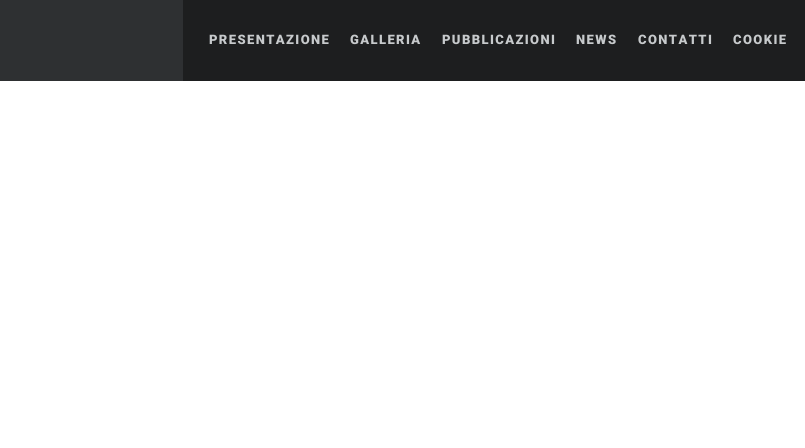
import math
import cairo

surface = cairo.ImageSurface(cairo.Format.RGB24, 805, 448)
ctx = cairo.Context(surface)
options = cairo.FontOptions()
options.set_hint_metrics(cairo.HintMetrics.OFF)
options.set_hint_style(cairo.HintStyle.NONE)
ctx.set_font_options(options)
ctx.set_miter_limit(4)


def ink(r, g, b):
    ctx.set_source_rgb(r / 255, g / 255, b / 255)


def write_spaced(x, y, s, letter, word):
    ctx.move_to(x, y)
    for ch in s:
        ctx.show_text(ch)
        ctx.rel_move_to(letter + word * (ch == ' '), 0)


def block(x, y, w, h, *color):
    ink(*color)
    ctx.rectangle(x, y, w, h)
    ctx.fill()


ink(255, 255, 255)
ctx.paint()
block(183, 0, 622, 81, 29, 30, 31)
block(0, 0, 183, 81, 46, 48, 50)
ctx.select_font_face("Roboto Black")
ctx.set_font_size(13)
ink(199, 202, 204)
write_spaced(209, 44, "PRESENTAZIONE", 1.4, 0)
write_spaced(350, 44, "GALLERIA", 1.4, 0)
write_spaced(442, 44, "PUBBLICAZIONI", 1.4, 0)
write_spaced(576, 44, "NEWS", 1.4, 0)
write_spaced(638, 44, "CONTATTI", 1.4, 0)
write_spaced(733, 44, "COOKIE", 1.4, 0)
surface.write_to_png("screenshot.png")
